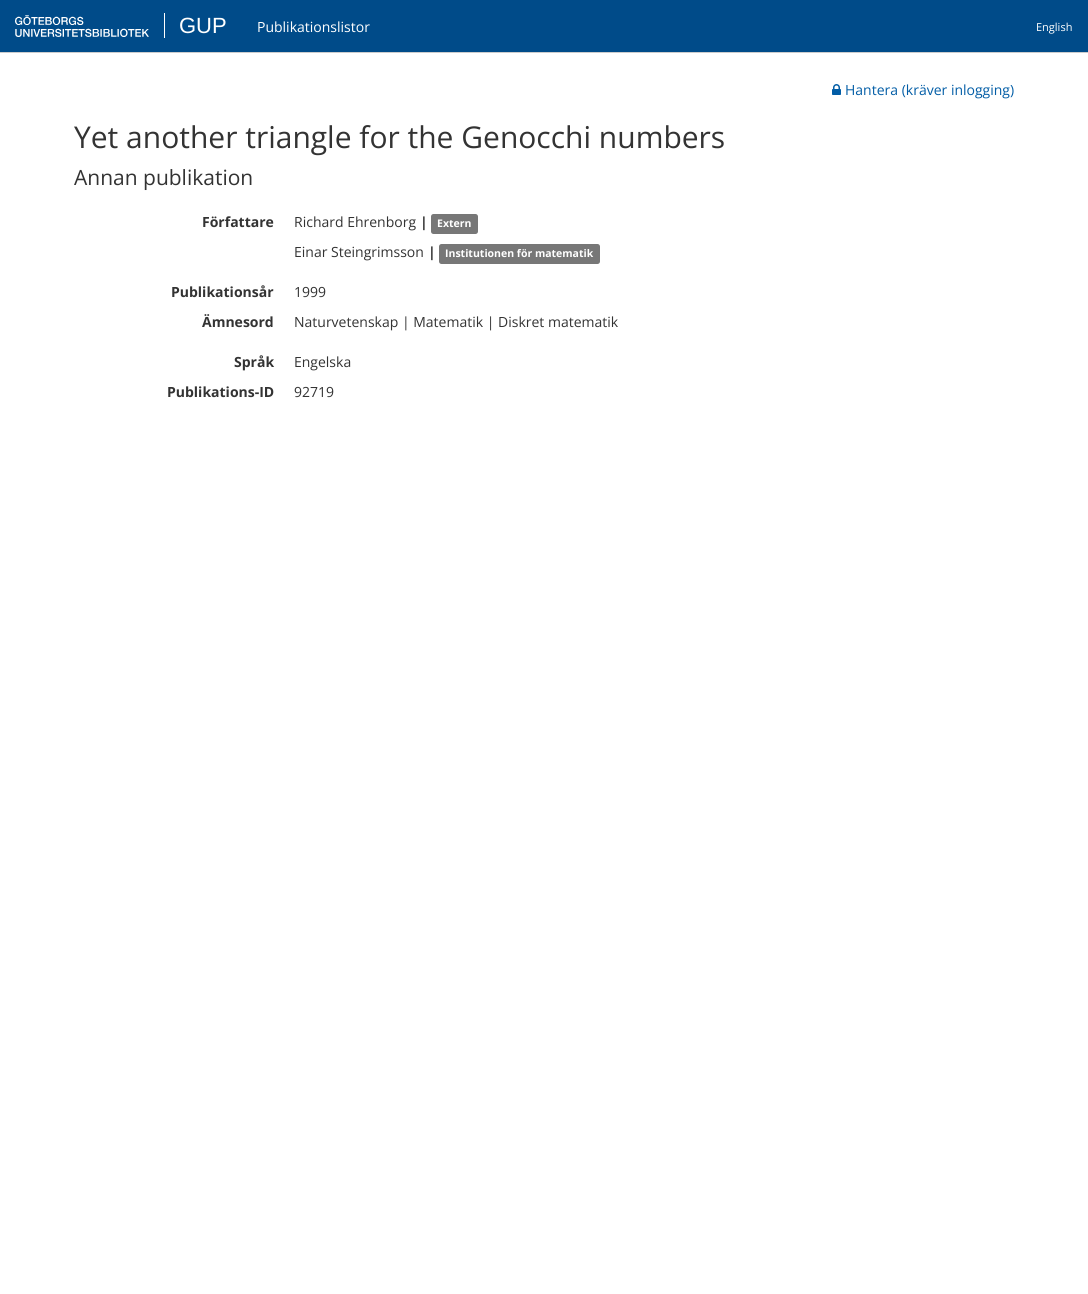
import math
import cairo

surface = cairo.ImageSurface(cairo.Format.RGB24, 1088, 1294)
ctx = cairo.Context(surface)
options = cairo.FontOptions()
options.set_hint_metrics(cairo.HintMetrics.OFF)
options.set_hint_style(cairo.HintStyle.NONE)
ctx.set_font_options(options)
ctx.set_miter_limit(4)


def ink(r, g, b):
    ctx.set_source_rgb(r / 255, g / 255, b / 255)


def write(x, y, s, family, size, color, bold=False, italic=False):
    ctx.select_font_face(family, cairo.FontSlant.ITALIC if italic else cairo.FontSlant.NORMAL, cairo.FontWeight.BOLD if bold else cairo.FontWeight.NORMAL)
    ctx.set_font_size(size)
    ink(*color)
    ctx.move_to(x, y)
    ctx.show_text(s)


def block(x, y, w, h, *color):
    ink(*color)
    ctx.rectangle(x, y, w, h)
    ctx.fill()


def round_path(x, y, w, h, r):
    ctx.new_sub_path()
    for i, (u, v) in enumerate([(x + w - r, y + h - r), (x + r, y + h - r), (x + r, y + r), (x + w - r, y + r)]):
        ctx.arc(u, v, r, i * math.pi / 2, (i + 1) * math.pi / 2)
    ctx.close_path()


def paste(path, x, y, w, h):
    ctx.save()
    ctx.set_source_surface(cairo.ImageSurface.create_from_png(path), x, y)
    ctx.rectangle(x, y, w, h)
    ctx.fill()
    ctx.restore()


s1 = dict(family="Liberation Sans", size=22, color=(255, 255, 255))
s2 = dict(family="Open Sans", size=14, color=(255, 255, 255))
s3 = dict(family="Open Sans", size=11, color=(255, 255, 255))
s4 = dict(family="Open Sans", size=14, color=(2, 93, 166))
s5 = dict(family="Open Sans", size=30, color=(51, 51, 51))
s6 = dict(family="Open Sans", size=21, color=(51, 51, 51))
s7 = dict(family="Open Sans", size=14, color=(51, 51, 51), bold=True)
s8 = dict(family="Open Sans", size=14, color=(51, 51, 51))
s9 = dict(family="Open Sans", size=10.5, color=(255, 255, 255), bold=True)

ink(255, 255, 255)
ctx.paint()
block(0, 0, 1088, 52, 0, 75, 137)
block(0, 52, 1088, 1, 204, 204, 204)
paste("pic1.png", 15, 15, 134, 22)
block(164, 13, 1, 25, 255, 255, 255)
write(179, 33, "GUP", **s1)
write(257, 32, "Publikationslistor", **s2)
write(1036, 31, "English", **s3)
paste("pic2.png", 832, 84, 9, 11)
write(845, 95, "Hantera (kräver inlogging)", **s4)
write(74, 148, "Yet another triangle for the Genocchi numbers", **s5)
write(74, 185, "Annan publikation", **s6)
write(202, 227, "Författare", **s7)
write(294, 227, "Richard Ehrenborg", **s8)
write(420, 227, "|", **s7)
ink(119, 119, 119)
round_path(431, 214, 47, 20, 2.5)
ctx.fill()
write(437, 227, "Extern", **s9)
write(294, 257, "Einar Steingrimsson", **s8)
write(428, 257, "|", **s7)
ink(119, 119, 119)
round_path(439, 244, 161, 20, 2.5)
ctx.fill()
write(445, 257, "Institutionen för matematik", **s9)
write(171, 297, "Publikationsår", **s7)
write(294, 297, "1999", **s8)
write(202, 327, "Ämnesord", **s7)
write(294, 327, "Naturvetenskap | Matematik | Diskret matematik", **s8)
write(234, 367, "Språk", **s7)
write(294, 367, "Engelska", **s8)
write(167, 397, "Publikations-ID", **s7)
write(294, 397, "92719", **s8)
surface.write_to_png("screenshot.png")
